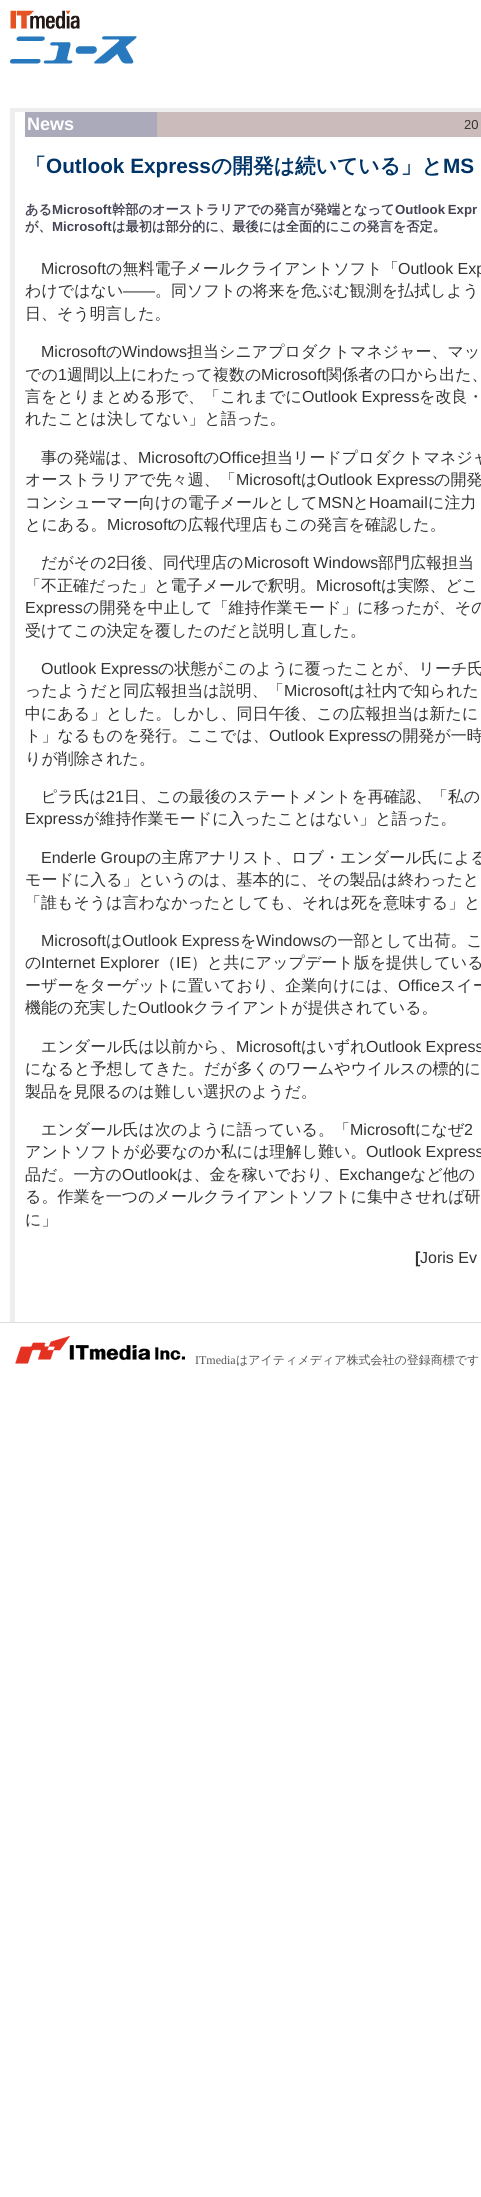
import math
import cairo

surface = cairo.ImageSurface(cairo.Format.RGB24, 481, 2197)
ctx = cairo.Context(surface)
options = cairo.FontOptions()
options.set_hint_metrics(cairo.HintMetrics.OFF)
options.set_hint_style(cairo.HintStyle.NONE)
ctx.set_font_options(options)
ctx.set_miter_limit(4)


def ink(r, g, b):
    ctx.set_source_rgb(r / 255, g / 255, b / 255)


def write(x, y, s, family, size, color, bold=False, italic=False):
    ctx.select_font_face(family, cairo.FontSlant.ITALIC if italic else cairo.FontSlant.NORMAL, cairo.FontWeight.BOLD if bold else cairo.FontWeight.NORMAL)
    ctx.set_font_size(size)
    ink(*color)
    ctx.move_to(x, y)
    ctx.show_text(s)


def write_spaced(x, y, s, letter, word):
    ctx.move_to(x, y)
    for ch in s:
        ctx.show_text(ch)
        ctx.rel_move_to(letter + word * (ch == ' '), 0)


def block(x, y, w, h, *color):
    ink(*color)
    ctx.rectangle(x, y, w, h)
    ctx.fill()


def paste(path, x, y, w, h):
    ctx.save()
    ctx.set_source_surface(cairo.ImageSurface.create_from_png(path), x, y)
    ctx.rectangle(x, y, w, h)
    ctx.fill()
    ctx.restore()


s1 = dict(family="Liberation Sans", size=18, color=(255, 255, 255), bold=True)
s2 = dict(family="Liberation Sans", size=13, color=(51, 51, 51))
s3 = dict(family="WenQuanYi Zen Hei", size=20.75, color=(0, 51, 102), bold=True)
s4 = dict(family="Liberation Sans", size=20.75, color=(0, 51, 102), bold=True)
s5 = dict(family="WenQuanYi Zen Hei", size=13.25, color=(68, 68, 85), bold=True)
s6 = dict(family="Liberation Sans", size=13.25, color=(68, 68, 85), bold=True)
s7 = dict(family="Liberation Sans", size=16, color=(51, 51, 51))
s8 = dict(family="WenQuanYi Zen Hei Medium", size=16, color=(51, 51, 51))
s9 = dict(family="Liberation Sans", size=16, color=(51, 51, 51), bold=True)
s10 = dict(family="Liberation Serif", size=12, color=(85, 85, 85))
s11 = dict(family="WenQuanYi Zen Hei Medium", size=12, color=(85, 85, 85))

ink(255, 255, 255)
ctx.paint()
paste("pic1.png", 10, 10, 127, 54)
ink(238, 238, 238)
ctx.new_path()
ctx.move_to(10, 108)
ctx.line_to(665, 108)
ctx.line_to(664, 112)
ctx.line_to(15, 112)
ctx.close_path()
ctx.fill()
block(10, 108, 5, 1214, 238, 238, 238)
block(25, 112, 132, 25, 170, 170, 187)
write(27, 130, "News", **s1)
block(157, 112, 324, 25, 204, 187, 187)
write(464, 129, "20", **s2)
write(25, 173, "「", **s3)
write(46, 173, "Outlook Express", **s4)
write(211, 173, "の開発は続いている」と", **s3)
write(443, 173, "MS", **s4)
write(25, 214, "ある", **s5)
write(52, 214, "Microsoft", **s6)
write(112, 214, "幹部のオーストラリアでの発言が発端となって", **s5)
ctx.select_font_face("Liberation Sans", cairo.FontSlant.NORMAL, cairo.FontWeight.BOLD)
write_spaced(395, 214, "Outlook Expr", 0, -1)
write(25, 231, "が、", **s5)
write(52, 231, "Microsoft", **s6)
write(112, 231, "は最初は部分的に、最後には全面的にこの発言を否定。", **s5)
write(41, 274, "Microsoft", **s7)
write(106, 274, "の無料電子メールクライアントソフト「", **s8)
write(398, 274, "Outlook Exp", **s7)
write(25, 296, "わけではない", **s8)
write(123, 296, "――", **s7)
write(155, 296, "。同ソフトの将来を危ぶむ観測を払拭しよう", **s8)
write(25, 319, "日、そう明言した。", **s8)
write(41, 357, "Microsoft", **s7)
write(106, 357, "の", **s8)
write(122, 357, "Windows", **s7)
write(187, 357, "担当シニアプロダクトマネジャー、マッ", **s8)
write(25, 380, "での", **s8)
write(58, 380, "1", **s7)
write(67, 380, "週間以上にわたって複数の", **s8)
write(261, 380, "Microsoft", **s7)
write(326, 380, "関係者の口から出た、", **s8)
write(25, 402, "言をとりまとめる形で、「これまでに", **s8)
write(302, 402, "Outlook Express", **s7)
write(419, 402, "を改良・", **s8)
write(25, 424, "れたことは決してない」と語った。", **s8)
write(41, 463, "事の発端は、", **s8)
write(138, 463, "Microsoft", **s7)
write(203, 463, "の", **s8)
write(219, 463, "Office", **s7)
write(261, 463, "担当リードプロダクトマネジャ", **s8)
write(25, 485, "オーストラリアで先々週、「", **s8)
write(236, 485, "Microsoft", **s7)
write(301, 485, "は", **s8)
write(317, 485, "Outlook Express", **s7)
write(434, 485, "の開発", **s8)
write(25, 508, "コンシューマー向けの電子メールとして", **s8)
write(318, 508, "MSN", **s7)
write(353, 508, "と", **s8)
write(369, 508, "Hoamail", **s7)
write(428, 508, "に注力", **s8)
write(25, 530, "とにある。", **s8)
write(107, 530, "Microsoft", **s7)
write(171, 530, "の広報代理店もこの発言を確認した。", **s8)
write(41, 568, "だがその", **s8)
write(107, 568, "2", **s7)
write(115, 568, "日後、同代理店の", **s8)
write(244, 568, "Microsoft Windows", **s7)
write(378, 568, "部門広報担当", **s8)
write(25, 591, "「不正確だった」と電子メールで釈明。", **s8)
write(316, 591, "Microsoft", **s7)
write(381, 591, "は実際、どこ", **s8)
write(25, 613, "Express", **s7)
write(83, 613, "の開発を中止して「維持作業モード」に移ったが、その", **s8)
write(25, 636, "受けてこの決定を覆したのだと説明し直した。", **s8)
write(41, 674, "Outlook Express", **s7)
write(158, 674, "の状態がこのように覆ったことが、リーチ氏", **s8)
write(25, 696, "ったようだと同広報担当は説明、「", **s8)
write(284, 696, "Microsoft", **s7)
write(349, 696, "は社内で知られた", **s8)
write(25, 719, "中にある」とした。しかし、同日午後、この広報担当は新たに", **s8)
write(25, 741, "ト」なるものを発行。ここでは、", **s8)
write(269, 741, "Outlook Express", **s7)
write(386, 741, "の開発が一時", **s8)
write(25, 764, "りが削除された。", **s8)
write(41, 802, "ピラ氏は", **s8)
write(106, 802, "21", **s7)
write(124, 802, "日、この最後のステートメントを再確認、「私の", **s8)
write(25, 824, "Express", **s7)
write(83, 824, "が維持作業モードに入ったことはない」と語った。", **s8)
write(41, 863, "Enderle Group", **s7)
write(145, 863, "の主席アナリスト、ロブ・エンダール氏による", **s8)
write(25, 885, "モードに入る」というのは、基本的に、その製品は終わったと", **s8)
write(25, 908, "「誰もそうは言わなかったとしても、それは死を意味する」と", **s8)
write(41, 946, "Microsoft", **s7)
write(106, 946, "は", **s8)
write(122, 946, "Outlook Express", **s7)
write(240, 946, "を", **s8)
write(256, 946, "Windows", **s7)
write(321, 946, "の一部として出荷。こ", **s8)
write(25, 968, "の", **s8)
write(41, 968, "Internet Explorer", **s7)
write(160, 968, "（", **s8)
write(176, 968, "IE", **s7)
write(191, 968, "）と共にアップデート版を提供している", **s8)
write(25, 991, "ーザーをターゲットに置いており、企業向けには、", **s8)
write(398, 991, "Office", **s7)
write(440, 991, "スイー", **s8)
write(25, 1013, "機能の充実した", **s8)
write(138, 1013, "Outlook", **s7)
write(193, 1013, "クライアントが提供されている。", **s8)
write(41, 1052, "エンダール氏は以前から、", **s8)
write(236, 1052, "Microsoft", **s7)
write(301, 1052, "はいずれ", **s8)
write(366, 1052, "Outlook Express", **s7)
write(25, 1074, "になると予想してきた。だが多くのワームやウイルスの標的に", **s8)
write(25, 1097, "製品を見限るのは難しい選択のようだ。", **s8)
write(41, 1135, "エンダール氏は次のように語っている。「", **s8)
write(350, 1135, "Microsoft", **s7)
write(415, 1135, "になぜ", **s8)
write(464, 1135, "2", **s7)
write(25, 1157, "アントソフトが必要なのか私には理解し難い。", **s8)
write(366, 1157, "Outlook Express", **s7)
write(25, 1180, "品だ。一方の", **s8)
write(122, 1180, "Outlook", **s7)
write(177, 1180, "は、金を稼いでおり、", **s8)
write(339, 1180, "Exchange", **s7)
write(410, 1180, "など他の", **s8)
write(25, 1202, "る。作業を一つのメールクライアントソフトに集中させれば研", **s8)
write(25, 1225, "に」", **s8)
write(415, 1263, "[", **s9)
write(420, 1263, "Joris Ev", **s7)
block(0, 1322, 481, 1, 221, 221, 221)
paste("pic2.png", 15, 1336, 170, 28)
write(195, 1364, "ITmedia", **s10)
write(236, 1364, "はアイティメディア株式会社の登録商標です", **s11)
surface.write_to_png("screenshot.png")
